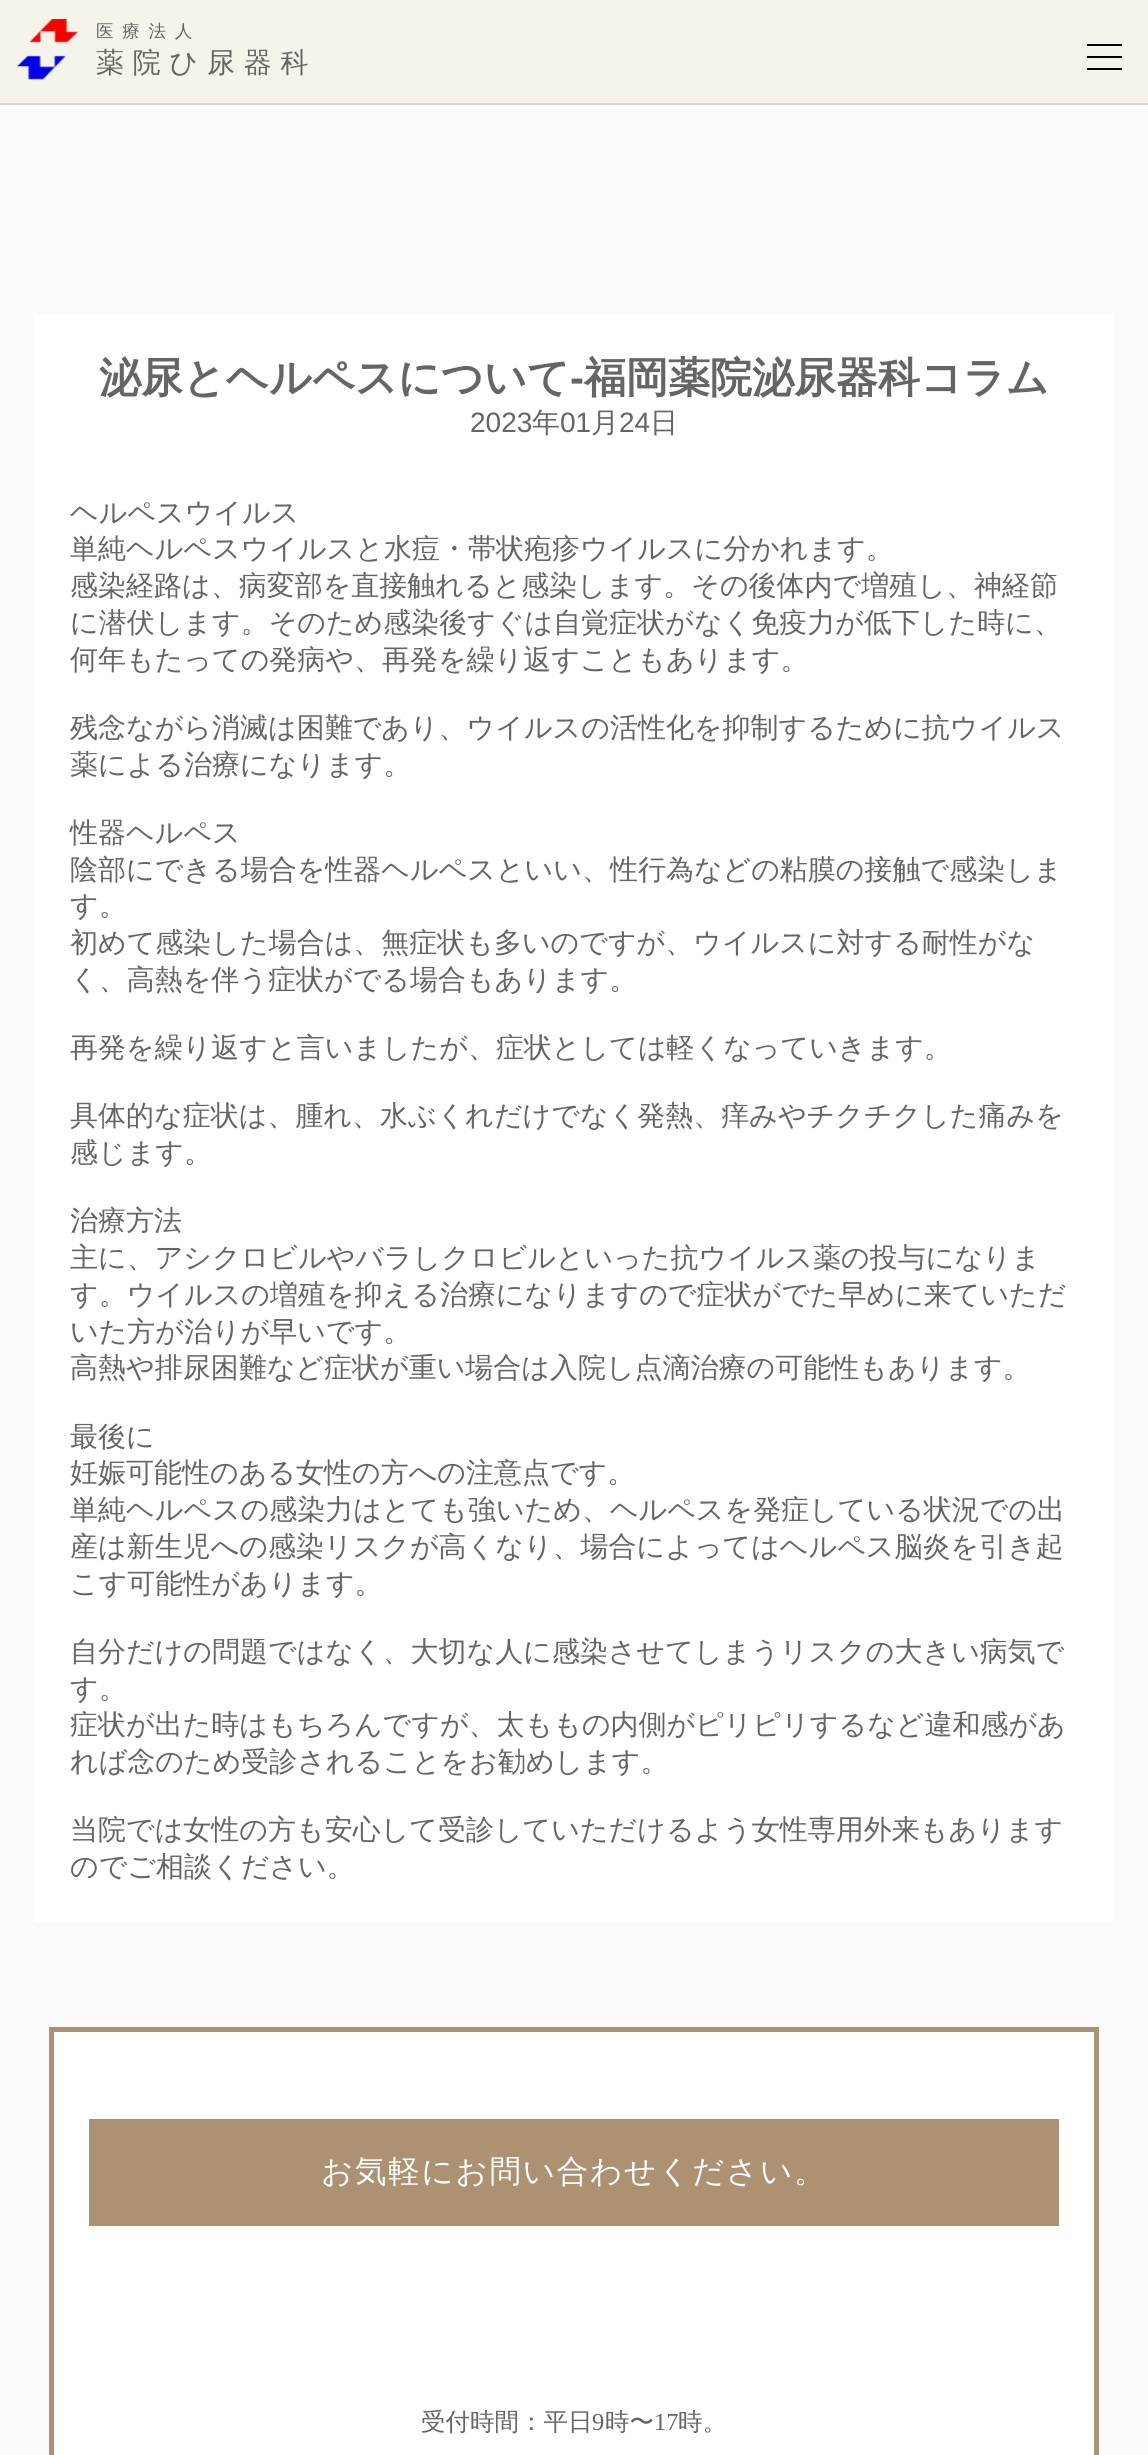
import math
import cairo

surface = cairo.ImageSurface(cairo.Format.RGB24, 1148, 2455)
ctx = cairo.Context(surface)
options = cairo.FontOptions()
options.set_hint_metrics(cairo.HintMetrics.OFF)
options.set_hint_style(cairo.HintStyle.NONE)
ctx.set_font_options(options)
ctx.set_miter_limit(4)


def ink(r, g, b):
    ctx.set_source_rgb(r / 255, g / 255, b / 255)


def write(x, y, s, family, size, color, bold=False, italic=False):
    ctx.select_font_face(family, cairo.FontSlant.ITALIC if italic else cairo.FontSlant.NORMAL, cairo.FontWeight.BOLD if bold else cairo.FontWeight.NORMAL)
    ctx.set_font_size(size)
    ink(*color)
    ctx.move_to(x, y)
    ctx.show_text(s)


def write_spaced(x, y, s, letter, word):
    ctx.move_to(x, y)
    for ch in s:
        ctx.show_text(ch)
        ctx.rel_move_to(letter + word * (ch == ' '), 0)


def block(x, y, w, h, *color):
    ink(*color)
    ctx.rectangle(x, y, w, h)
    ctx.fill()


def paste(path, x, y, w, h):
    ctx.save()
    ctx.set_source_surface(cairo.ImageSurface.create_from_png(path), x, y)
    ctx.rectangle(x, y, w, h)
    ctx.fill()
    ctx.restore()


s1 = dict(family="WenQuanYi Zen Hei", size=42, color=(101, 101, 101), bold=True)
s2 = dict(family="Liberation Sans", size=42, color=(101, 101, 101), bold=True)
s3 = dict(family="Liberation Sans", size=28, color=(101, 101, 101))
s4 = dict(family="WenQuanYi Zen Hei Medium", size=28, color=(101, 101, 101))
s5 = dict(family="WenQuanYi Zen Hei Medium", size=24.5, color=(101, 101, 101))
s6 = dict(family="Liberation Serif", size=24.5, color=(101, 101, 101))

ink(246, 243, 234)
ctx.paint()
block(0, 103, 1148, 2, 213, 213, 213)
paste("pic1.png", 17, 19, 62, 62)
ctx.select_font_face("WenQuanYi Zen Hei Medium")
ctx.set_font_size(17.5)
ink(101, 101, 101)
write_spaced(96, 37, "医療法人", 8.75, 0)
ctx.set_font_size(28)
write_spaced(96, 72, "薬院ひ尿器科", 8.75, 0)
block(1087, 44, 35, 2, 0, 0, 0)
block(1087, 56, 35, 2, 0, 0, 0)
block(1087, 68, 35, 2, 0, 0, 0)
block(0, 105, 1148, 2350, 251, 251, 251)
block(35, 315, 1078, 1607, 255, 255, 255)
write(99, 392, "泌尿とヘルペスについて", **s1)
write(570, 392, "-", **s2)
write(584, 392, "福岡薬院泌尿器科コラム", **s1)
write(470, 432, "2023", **s3)
write(532, 432, "年", **s4)
write(560, 432, "01", **s3)
write(591, 432, "月", **s4)
write(619, 432, "24", **s3)
write(650, 432, "日", **s4)
write(70, 522, "ヘルペスウイルス", **s4)
write(70, 558, "単純ヘルペスウイルスと水痘・帯状疱疹ウイルスに分かれます。", **s4)
write(70, 595, "感染経路は、病変部を直接触れると感染します。その後体内で増殖し、神経節", **s4)
write(70, 632, "に潜伏します。そのため感染後すぐは自覚症状がなく免疫力が低下した時に、", **s4)
write(70, 669, "何年もたっての発病や、再発を繰り返すこともあります。", **s4)
write(70, 737, "残念ながら消滅は困難であり、ウイルスの活性化を抑制するために抗ウイルス", **s4)
write(70, 774, "薬による治療になります。", **s4)
write(70, 842, "性器ヘルペス", **s4)
write(70, 879, "陰部にできる場合を性器ヘルペスといい、性行為などの粘膜の接触で感染しま", **s4)
write(70, 915, "す。", **s4)
write(70, 952, "初めて感染した場合は、無症状も多いのですが、ウイルスに対する耐性がな", **s4)
write(70, 989, "く、高熱を伴う症状がでる場合もあります。", **s4)
write(70, 1057, "再発を繰り返すと言いましたが、症状としては軽くなっていきます。", **s4)
write(70, 1125, "具体的な症状は、腫れ、水ぶくれだけでなく発熱、痒みやチクチクした痛みを", **s4)
write(70, 1162, "感じます。", **s4)
write(70, 1230, "治療方法", **s4)
write(70, 1267, "主に、アシクロビルやバラしクロビルといった抗ウイルス薬の投与になりま", **s4)
write(70, 1304, "す。ウイルスの増殖を抑える治療になりますので症状がでた早めに来ていただ", **s4)
write(70, 1341, "いた方が治りが早いです。", **s4)
write(70, 1377, "高熱や排尿困難など症状が重い場合は入院し点滴治療の可能性もあります。", **s4)
write(70, 1446, "最後に", **s4)
write(70, 1482, "妊娠可能性のある女性の方への注意点です。", **s4)
write(70, 1519, "単純ヘルペスの感染力はとても強いため、ヘルペスを発症している状況での出", **s4)
write(70, 1556, "産は新生児への感染リスクが高くなり、場合によってはヘルペス脳炎を引き起", **s4)
write(70, 1593, "こす可能性があります。", **s4)
write(70, 1661, "自分だけの問題ではなく、大切な人に感染させてしまうリスクの大きい病気で", **s4)
write(70, 1698, "す。", **s4)
write(70, 1734, "症状が出た時はもちろんですが、太ももの内側がピリピリするなど違和感があ", **s4)
write(70, 1771, "れば念のため受診されることをお勧めします。", **s4)
write(70, 1839, "当院では女性の方も安心して受診していただけるよう女性専用外来もあります", **s4)
write(70, 1876, "のでご相談ください。", **s4)
ink(255, 255, 255)
ctx.rectangle(51.5, 2029.5, 1045, 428)
ctx.fill_preserve()
ink(172, 145, 115)
ctx.set_line_width(5)
ctx.stroke()
block(89, 2119, 970, 107, 172, 145, 115)
ctx.set_font_size(31.5)
ink(255, 255, 255)
write_spaced(321, 2182, "お気軽にお問い合わせください。", 1.75, 0)
write(421, 2430, "受付時間：平日", **s5)
write(592, 2430, "9", **s6)
write(605, 2430, "時〜", **s5)
write(654, 2430, "17", **s6)
write(678, 2430, "時。", **s5)
surface.write_to_png("screenshot.png")
